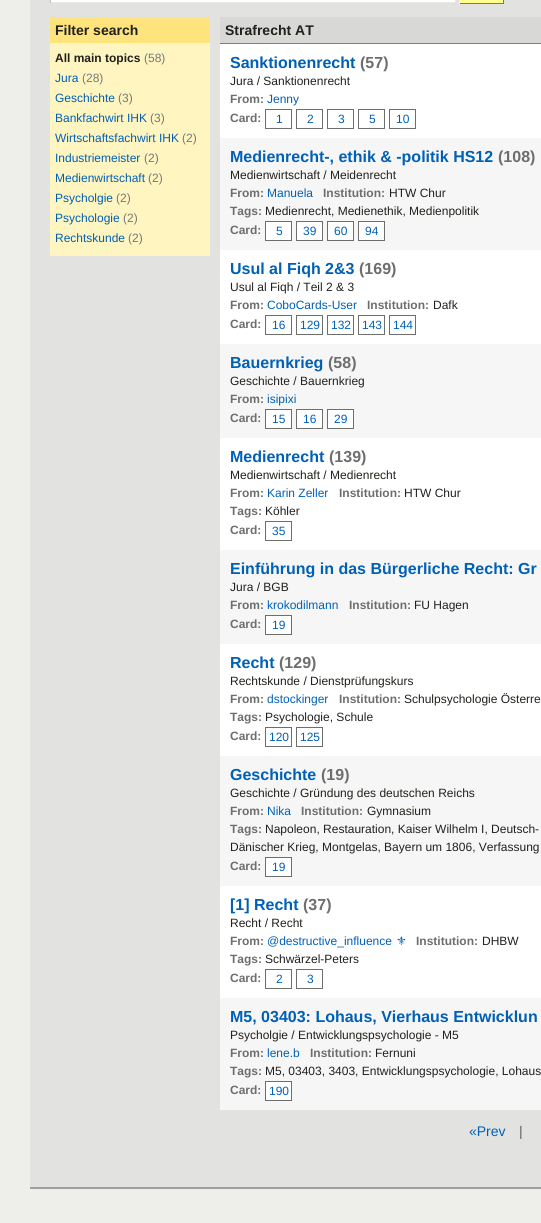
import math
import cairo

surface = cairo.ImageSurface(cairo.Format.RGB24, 541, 1223)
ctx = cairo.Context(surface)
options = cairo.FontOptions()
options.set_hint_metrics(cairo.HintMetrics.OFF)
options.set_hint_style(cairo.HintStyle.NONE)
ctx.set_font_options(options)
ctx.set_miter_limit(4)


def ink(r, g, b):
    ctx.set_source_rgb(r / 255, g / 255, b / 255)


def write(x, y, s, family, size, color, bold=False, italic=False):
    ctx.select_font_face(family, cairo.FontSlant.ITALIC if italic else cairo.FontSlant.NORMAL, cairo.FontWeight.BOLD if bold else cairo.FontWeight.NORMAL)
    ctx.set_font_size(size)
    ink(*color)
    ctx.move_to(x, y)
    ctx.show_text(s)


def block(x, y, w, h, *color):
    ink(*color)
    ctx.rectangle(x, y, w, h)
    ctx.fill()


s1 = dict(family="Liberation Sans", size=14, color=(33, 32, 28), bold=True)
s2 = dict(family="Liberation Sans", size=12, color=(33, 32, 28), bold=True)
s3 = dict(family="Liberation Sans", size=12, color=(119, 120, 118))
s4 = dict(family="Liberation Sans", size=12, color=(0, 96, 182))
s5 = dict(family="Liberation Sans", size=16, color=(0, 96, 182), bold=True)
s6 = dict(family="Liberation Sans", size=16, color=(109, 111, 108), bold=True)
s7 = dict(family="Liberation Sans", size=12, color=(33, 32, 28))
s8 = dict(family="Liberation Sans", size=12, color=(109, 111, 108), bold=True)
s9 = dict(family="DejaVu Sans", size=12, color=(0, 96, 182))
s10 = dict(family="Liberation Sans", size=14, color=(0, 96, 182))
s11 = dict(family="Liberation Sans", size=14, color=(96, 96, 96))

ink(238, 239, 235)
ctx.paint()
block(30, 0, 511, 1187, 226, 227, 224)
block(30, 1187, 511, 2, 159, 159, 159)
block(50, 0, 406, 2, 255, 255, 255)
block(455, 0, 1, 3, 232, 233, 231)
block(50, 2, 406, 1, 232, 233, 231)
block(50, 0, 1, 3, 187, 187, 186)
block(459, 0, 45, 3, 255, 255, 144)
block(503, 0, 1, 4, 119, 120, 118)
block(459, 3, 45, 1, 119, 120, 118)
block(459, 0, 1, 4, 246, 246, 246)
block(50, 17, 160, 26, 255, 228, 126)
write(55, 35, "Filter search", **s1)
block(50, 43, 160, 213, 255, 245, 193)
write(55, 62, "All main topics", **s2)
write(144, 62, "(58)", **s3)
write(55, 82, "Jura", **s4)
write(82, 82, "(28)", **s3)
write(55, 102, "Geschichte", **s4)
write(118, 102, "(3)", **s3)
write(55, 122, "Bankfachwirt IHK", **s4)
write(150, 122, "(3)", **s3)
write(55, 142, "Wirtschaftsfachwirt IHK", **s4)
write(182, 142, "(2)", **s3)
write(55, 162, "Industriemeister", **s4)
write(144, 162, "(2)", **s3)
write(55, 182, "Medienwirtschaft", **s4)
write(148, 182, "(2)", **s3)
write(55, 202, "Psycholgie", **s4)
write(116, 202, "(2)", **s3)
write(55, 222, "Psychologie", **s4)
write(123, 222, "(2)", **s3)
write(55, 242, "Rechtskunde", **s4)
write(128, 242, "(2)", **s3)
block(220, 17, 321, 26, 216, 217, 215)
block(220, 43, 321, 1, 128, 128, 127)
write(225, 35, "Strafrecht AT", **s1)
block(220, 44, 321, 94, 255, 255, 255)
write(230, 68, "Sanktionenrecht", **s5)
write(360, 68, "(57)", **s6)
write(230, 85, "Jura / Sanktionenrecht", **s7)
write(230, 103, "From:", **s8)
write(267, 103, "Jenny", **s4)
write(230, 122, "Card:", **s8)
ctx.rectangle(265.5, 109.5, 26, 19)
ctx.set_line_width(1)
ctx.stroke()
write(276, 123, "1", **s4)
ctx.rectangle(296.5, 109.5, 26, 19)
ink(109, 111, 108)
ctx.stroke()
write(307, 123, "2", **s4)
ctx.rectangle(327.5, 109.5, 26, 19)
ink(109, 111, 108)
ctx.stroke()
write(338, 123, "3", **s4)
ctx.rectangle(358.5, 109.5, 26, 19)
ink(109, 111, 108)
ctx.stroke()
write(369, 123, "5", **s4)
ctx.rectangle(389.5, 109.5, 26, 19)
ink(109, 111, 108)
ctx.stroke()
write(396, 123, "10", **s4)
block(220, 138, 321, 112, 246, 246, 246)
write(230, 162, "Medienrecht-, ethik & -politik HS12", **s5)
write(498, 162, "(108)", **s6)
write(230, 179, "Medienwirtschaft / Meidenrecht", **s7)
write(230, 197, "From:", **s8)
write(267, 197, "Manuela", **s4)
write(323, 197, "Institution:", **s8)
write(389, 197, "HTW Chur", **s7)
write(230, 215, "Tags:", **s8)
write(265, 215, "Medienrecht, Medienethik, Medienpolitik", **s7)
write(230, 234, "Card:", **s8)
ink(255, 255, 255)
ctx.rectangle(265.5, 221.5, 26, 19)
ctx.fill_preserve()
ink(109, 111, 108)
ctx.stroke()
write(276, 235, "5", **s4)
ink(255, 255, 255)
ctx.rectangle(296.5, 221.5, 26, 19)
ctx.fill_preserve()
ink(109, 111, 108)
ctx.stroke()
write(303, 235, "39", **s4)
ink(255, 255, 255)
ctx.rectangle(327.5, 221.5, 26, 19)
ctx.fill_preserve()
ink(109, 111, 108)
ctx.stroke()
write(334, 235, "60", **s4)
ink(255, 255, 255)
ctx.rectangle(358.5, 221.5, 26, 19)
ctx.fill_preserve()
ink(109, 111, 108)
ctx.stroke()
write(365, 235, "94", **s4)
block(220, 250, 321, 94, 255, 255, 255)
write(230, 274, "Usul al Fiqh 2&3", **s5)
write(359, 274, "(169)", **s6)
write(230, 291, "Usul al Fiqh / Teil 2 & 3", **s7)
write(230, 309, "From:", **s8)
write(267, 309, "CoboCards-User", **s4)
write(367, 309, "Institution:", **s8)
write(433, 309, "Dafk", **s7)
write(230, 328, "Card:", **s8)
ctx.rectangle(265.5, 315.5, 26, 19)
ctx.stroke()
write(272, 329, "16", **s4)
ctx.rectangle(296.5, 315.5, 26, 19)
ink(109, 111, 108)
ctx.stroke()
write(300, 329, "129", **s4)
ctx.rectangle(327.5, 315.5, 26, 19)
ink(109, 111, 108)
ctx.stroke()
write(331, 329, "132", **s4)
ctx.rectangle(358.5, 315.5, 26, 19)
ink(109, 111, 108)
ctx.stroke()
write(362, 329, "143", **s4)
ctx.rectangle(389.5, 315.5, 26, 19)
ink(109, 111, 108)
ctx.stroke()
write(393, 329, "144", **s4)
block(220, 344, 321, 94, 246, 246, 246)
write(230, 368, "Bauernkrieg", **s5)
write(328, 368, "(58)", **s6)
write(230, 385, "Geschichte / Bauernkrieg", **s7)
write(230, 403, "From:", **s8)
write(267, 403, "isipixi", **s4)
write(230, 422, "Card:", **s8)
ink(255, 255, 255)
ctx.rectangle(265.5, 409.5, 26, 19)
ctx.fill_preserve()
ink(109, 111, 108)
ctx.stroke()
write(272, 423, "15", **s4)
ink(255, 255, 255)
ctx.rectangle(296.5, 409.5, 26, 19)
ctx.fill_preserve()
ink(109, 111, 108)
ctx.stroke()
write(303, 423, "16", **s4)
ink(255, 255, 255)
ctx.rectangle(327.5, 409.5, 26, 19)
ctx.fill_preserve()
ink(109, 111, 108)
ctx.stroke()
write(334, 423, "29", **s4)
block(220, 438, 321, 112, 255, 255, 255)
write(230, 462, "Medienrecht", **s5)
write(329, 462, "(139)", **s6)
write(230, 479, "Medienwirtschaft / Medienrecht", **s7)
write(230, 497, "From:", **s8)
write(267, 497, "Karin Zeller", **s4)
write(339, 497, "Institution:", **s8)
write(404, 497, "HTW Chur", **s7)
write(230, 515, "Tags:", **s8)
write(265, 515, "Köhler", **s7)
write(230, 534, "Card:", **s8)
ctx.rectangle(265.5, 521.5, 26, 19)
ctx.stroke()
write(272, 535, "35", **s4)
block(220, 550, 321, 94, 246, 246, 246)
write(230, 574, "Einführung in das Bürgerliche Recht: Gr", **s5)
write(230, 591, "Jura / BGB", **s7)
write(230, 609, "From:", **s8)
write(267, 609, "krokodilmann", **s4)
write(349, 609, "Institution:", **s8)
write(414, 609, "FU Hagen", **s7)
write(230, 628, "Card:", **s8)
ink(255, 255, 255)
ctx.rectangle(265.5, 615.5, 26, 19)
ctx.fill_preserve()
ink(109, 111, 108)
ctx.stroke()
write(272, 629, "19", **s4)
block(220, 644, 321, 112, 255, 255, 255)
write(230, 668, "Recht", **s5)
write(279, 668, "(129)", **s6)
write(230, 685, "Rechtskunde / Dienstprüfungskurs", **s7)
write(230, 703, "From:", **s8)
write(267, 703, "dstockinger", **s4)
write(339, 703, "Institution:", **s8)
write(404, 703, "Schulpsychologie Österre", **s7)
write(230, 721, "Tags:", **s8)
write(265, 721, "Psychologie, Schule", **s7)
write(230, 740, "Card:", **s8)
ctx.rectangle(265.5, 727.5, 26, 19)
ctx.stroke()
write(269, 741, "120", **s4)
ctx.rectangle(296.5, 727.5, 26, 19)
ink(109, 111, 108)
ctx.stroke()
write(300, 741, "125", **s4)
block(220, 756, 321, 130, 246, 246, 246)
write(230, 780, "Geschichte", **s5)
write(321, 780, "(19)", **s6)
write(230, 797, "Geschichte / Gründung des deutschen Reichs", **s7)
write(230, 815, "From:", **s8)
write(267, 815, "Nika", **s4)
write(301, 815, "Institution:", **s8)
write(367, 815, "Gymnasium", **s7)
write(230, 833, "Tags:", **s8)
write(265, 833, "Napoleon, Restauration, Kaiser Wilhelm I, Deutsch-", **s7)
write(230, 851, "Dänischer Krieg, Montgelas, Bayern um 1806, Verfassung", **s7)
write(230, 870, "Card:", **s8)
ink(255, 255, 255)
ctx.rectangle(265.5, 857.5, 26, 19)
ctx.fill_preserve()
ink(109, 111, 108)
ctx.stroke()
write(272, 871, "19", **s4)
block(220, 886, 321, 112, 255, 255, 255)
write(230, 910, "[1] Recht", **s5)
write(303, 910, "(37)", **s6)
write(230, 927, "Recht / Recht", **s7)
write(230, 945, "From:", **s8)
write(267, 945, "@destructive_influence", **s4)
write(396, 945, "⚜", **s9)
write(416, 945, "Institution:", **s8)
write(482, 945, "DHBW", **s7)
write(230, 963, "Tags:", **s8)
write(265, 963, "Schwärzel-Peters", **s7)
write(230, 982, "Card:", **s8)
ctx.rectangle(265.5, 969.5, 26, 19)
ctx.stroke()
write(276, 983, "2", **s4)
ctx.rectangle(296.5, 969.5, 26, 19)
ink(109, 111, 108)
ctx.stroke()
write(307, 983, "3", **s4)
block(220, 998, 321, 112, 246, 246, 246)
write(230, 1022, "M5, 03403: Lohaus, Vierhaus Entwicklun", **s5)
write(230, 1039, "Psycholgie / Entwicklungspsychologie - M5", **s7)
write(230, 1057, "From:", **s8)
write(267, 1057, "lene.b", **s4)
write(310, 1057, "Institution:", **s8)
write(375, 1057, "Fernuni", **s7)
write(230, 1075, "Tags:", **s8)
write(265, 1075, "M5, 03403, 3403, Entwicklungspsychologie, Lohaus", **s7)
write(230, 1094, "Card:", **s8)
ink(255, 255, 255)
ctx.rectangle(265.5, 1081.5, 26, 19)
ctx.fill_preserve()
ink(109, 111, 108)
ctx.stroke()
write(269, 1095, "190", **s4)
write(469, 1136, "«Prev", **s10)
write(519, 1136, "|", **s11)
surface.write_to_png("screenshot.png")
